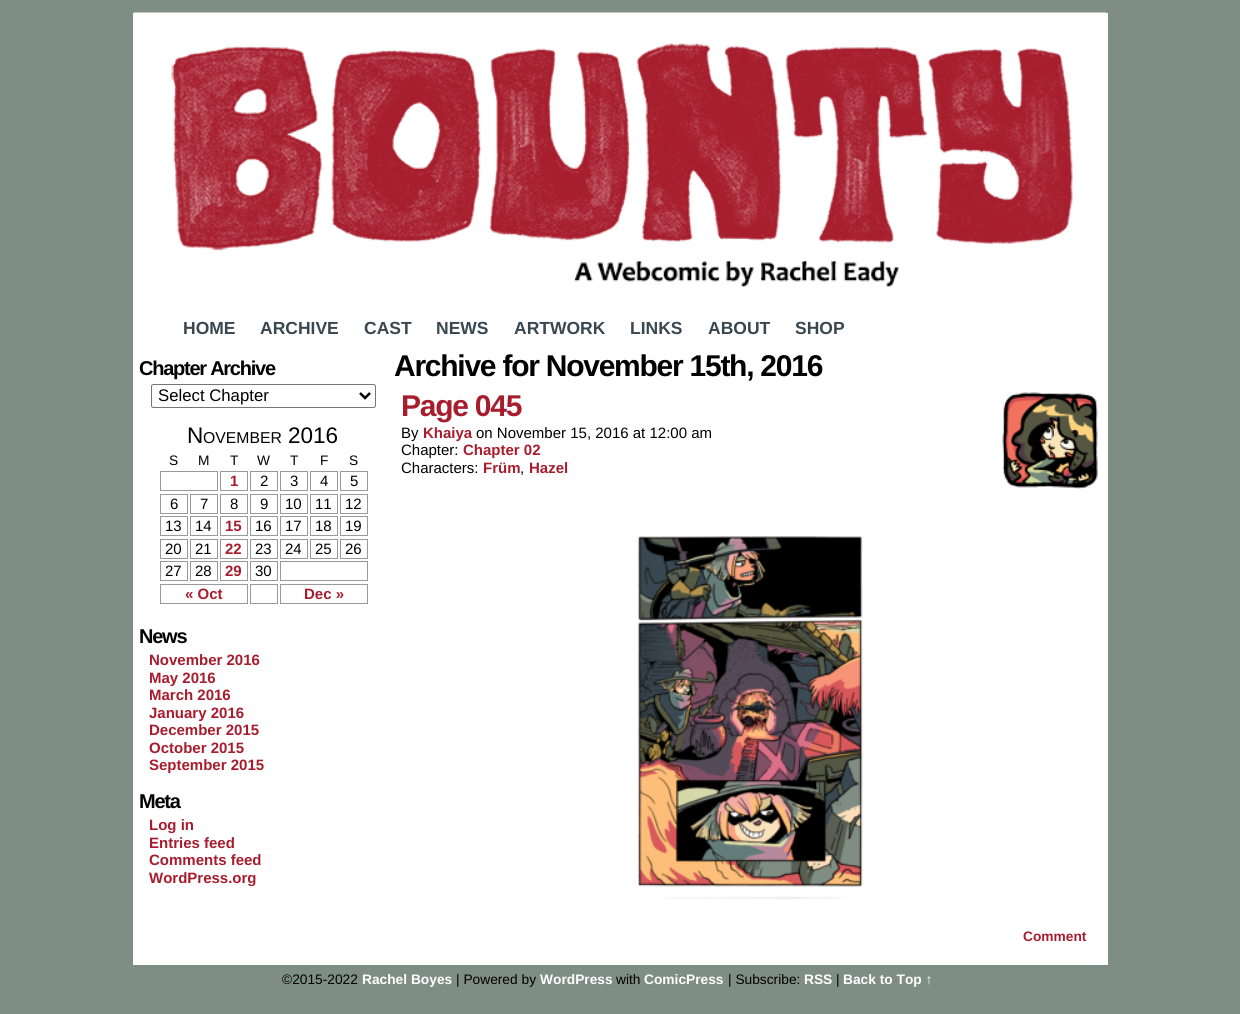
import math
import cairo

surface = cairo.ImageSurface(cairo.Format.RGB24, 1240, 1014)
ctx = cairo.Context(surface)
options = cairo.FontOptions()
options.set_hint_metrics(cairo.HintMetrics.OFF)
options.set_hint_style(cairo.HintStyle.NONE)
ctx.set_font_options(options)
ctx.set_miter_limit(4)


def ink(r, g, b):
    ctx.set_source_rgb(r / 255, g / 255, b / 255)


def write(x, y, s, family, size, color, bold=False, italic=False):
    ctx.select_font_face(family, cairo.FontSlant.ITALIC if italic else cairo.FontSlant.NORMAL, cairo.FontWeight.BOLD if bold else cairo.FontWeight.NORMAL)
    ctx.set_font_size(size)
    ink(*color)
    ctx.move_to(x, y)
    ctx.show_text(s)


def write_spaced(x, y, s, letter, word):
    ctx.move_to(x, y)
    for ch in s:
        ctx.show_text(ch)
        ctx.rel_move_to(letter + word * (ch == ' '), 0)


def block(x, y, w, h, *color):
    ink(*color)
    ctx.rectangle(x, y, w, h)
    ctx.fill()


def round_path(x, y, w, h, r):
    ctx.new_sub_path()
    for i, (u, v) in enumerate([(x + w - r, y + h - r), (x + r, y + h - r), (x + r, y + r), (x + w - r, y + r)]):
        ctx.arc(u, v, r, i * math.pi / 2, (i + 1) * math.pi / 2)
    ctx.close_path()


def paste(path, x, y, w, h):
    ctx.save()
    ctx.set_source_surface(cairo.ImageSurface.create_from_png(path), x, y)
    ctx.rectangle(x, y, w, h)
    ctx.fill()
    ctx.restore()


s1 = dict(family="Liberation Sans", size=17.5, color=(56, 71, 80), bold=True)
s2 = dict(family="Liberation Sans", size=16.75, color=(0, 0, 0))
s3 = dict(family="Liberation Sans", size=22.5, color=(0, 0, 0))
s4 = dict(family="Liberation Sans", size=15.75, color=(0, 0, 0))
s5 = dict(family="Liberation Sans", size=13.75, color=(0, 0, 0))
s6 = dict(family="Liberation Sans", size=15, color=(167, 29, 45), bold=True)
s7 = dict(family="Liberation Sans", size=15, color=(0, 0, 0))
s8 = dict(family="Liberation Sans", size=13.75, color=(167, 29, 45), bold=True)
s9 = dict(family="Liberation Sans", size=13.75, color=(255, 255, 255), bold=True)

ink(126, 142, 132)
ctx.paint()
block(133, 13, 975, 952, 255, 255, 255)
paste("pic1.png", 133, 12, 974, 275)
write(183, 334, "HOME", **s1)
write(260, 334, "ARCHIVE", **s1)
write(364, 334, "CAST", **s1)
write(436, 334, "NEWS", **s1)
write(514, 334, "ARTWORK", **s1)
write(630, 334, "LINKS", **s1)
write(708, 334, "ABOUT", **s1)
write(795, 334, "SHOP", **s1)
ctx.set_font_size(20)
ink(0, 0, 0)
write_spaced(139, 375, "Chapter Archive", -1.25, 0)
round_path(151.5, 384.5, 224, 23, 2)
ink(118, 118, 118)
ctx.set_line_width(1)
ctx.stroke()
ctx.new_path()
ctx.move_to(360, 393)
ctx.line_to(365, 398)
ctx.line_to(370, 393)
ink(0, 0, 0)
ctx.set_line_width(2.5)
ctx.stroke()
write(158, 401, "Select Chapter", **s2)
write(187, 443, "N", **s3)
write(203, 443, "OVEMBER", **s4)
write(288, 443, "2016", **s3)
write(169, 465, "S", **s5)
write(198, 465, "M", **s5)
write(230, 465, "T", **s5)
write(257, 465, "W", **s5)
write(290, 465, "T", **s5)
write(320, 465, "F", **s5)
write(349, 465, "S", **s5)
ctx.rectangle(160.5, 471.5, 57, 19)
ink(153, 153, 153)
ctx.set_line_width(1)
ctx.stroke()
ctx.rectangle(220.5, 471.5, 27, 19)
ctx.stroke()
write(230, 486, "1", **s6)
ctx.rectangle(250.5, 471.5, 27, 19)
ink(153, 153, 153)
ctx.stroke()
write(260, 486, "2", **s7)
ctx.rectangle(280.5, 471.5, 27, 19)
ink(153, 153, 153)
ctx.stroke()
write(290, 486, "3", **s7)
ctx.rectangle(310.5, 471.5, 27, 19)
ink(153, 153, 153)
ctx.stroke()
write(320, 486, "4", **s7)
ctx.rectangle(340.5, 471.5, 27, 19)
ink(153, 153, 153)
ctx.stroke()
write(350, 486, "5", **s7)
ctx.rectangle(160.5, 494.5, 27, 19)
ink(153, 153, 153)
ctx.stroke()
write(170, 509, "6", **s7)
ctx.rectangle(190.5, 494.5, 27, 19)
ink(153, 153, 153)
ctx.stroke()
write(200, 509, "7", **s7)
ctx.rectangle(220.5, 494.5, 27, 19)
ink(153, 153, 153)
ctx.stroke()
write(230, 509, "8", **s7)
ctx.rectangle(250.5, 494.5, 27, 19)
ink(153, 153, 153)
ctx.stroke()
write(260, 509, "9", **s7)
ctx.rectangle(280.5, 494.5, 27, 19)
ink(153, 153, 153)
ctx.stroke()
write(285, 509, "10", **s7)
ctx.rectangle(310.5, 494.5, 27, 19)
ink(153, 153, 153)
ctx.stroke()
write(315, 509, "11", **s7)
ctx.rectangle(340.5, 494.5, 27, 19)
ink(153, 153, 153)
ctx.stroke()
write(345, 509, "12", **s7)
ctx.rectangle(160.5, 516.5, 27, 19)
ink(153, 153, 153)
ctx.stroke()
write(165, 531, "13", **s7)
ctx.rectangle(190.5, 516.5, 27, 19)
ink(153, 153, 153)
ctx.stroke()
write(195, 531, "14", **s7)
ctx.rectangle(220.5, 516.5, 27, 19)
ink(153, 153, 153)
ctx.stroke()
write(225, 531, "15", **s6)
ctx.rectangle(250.5, 516.5, 27, 19)
ink(153, 153, 153)
ctx.stroke()
write(255, 531, "16", **s7)
ctx.rectangle(280.5, 516.5, 27, 19)
ink(153, 153, 153)
ctx.stroke()
write(285, 531, "17", **s7)
ctx.rectangle(310.5, 516.5, 27, 19)
ink(153, 153, 153)
ctx.stroke()
write(315, 531, "18", **s7)
ctx.rectangle(340.5, 516.5, 27, 19)
ink(153, 153, 153)
ctx.stroke()
write(345, 531, "19", **s7)
ctx.rectangle(160.5, 539.5, 27, 19)
ink(153, 153, 153)
ctx.stroke()
write(165, 554, "20", **s7)
ctx.rectangle(190.5, 539.5, 27, 19)
ink(153, 153, 153)
ctx.stroke()
write(195, 554, "21", **s7)
ctx.rectangle(220.5, 539.5, 27, 19)
ink(153, 153, 153)
ctx.stroke()
write(225, 554, "22", **s6)
ctx.rectangle(250.5, 539.5, 27, 19)
ink(153, 153, 153)
ctx.stroke()
write(255, 554, "23", **s7)
ctx.rectangle(280.5, 539.5, 27, 19)
ink(153, 153, 153)
ctx.stroke()
write(285, 554, "24", **s7)
ctx.rectangle(310.5, 539.5, 27, 19)
ink(153, 153, 153)
ctx.stroke()
write(315, 554, "25", **s7)
ctx.rectangle(340.5, 539.5, 27, 19)
ink(153, 153, 153)
ctx.stroke()
write(345, 554, "26", **s7)
ctx.rectangle(160.5, 561.5, 27, 19)
ink(153, 153, 153)
ctx.stroke()
write(165, 576, "27", **s7)
ctx.rectangle(190.5, 561.5, 27, 19)
ink(153, 153, 153)
ctx.stroke()
write(195, 576, "28", **s7)
ctx.rectangle(220.5, 561.5, 27, 19)
ink(153, 153, 153)
ctx.stroke()
write(225, 576, "29", **s6)
ctx.rectangle(250.5, 561.5, 27, 19)
ink(153, 153, 153)
ctx.stroke()
write(255, 576, "30", **s7)
ctx.rectangle(280.5, 561.5, 87, 19)
ink(153, 153, 153)
ctx.stroke()
ctx.rectangle(160.5, 584.5, 87, 19)
ctx.stroke()
write(185, 599, "« Oct", **s6)
ctx.rectangle(250.5, 584.5, 27, 19)
ink(153, 153, 153)
ctx.stroke()
ctx.rectangle(280.5, 584.5, 87, 19)
ctx.stroke()
write(304, 599, "Dec »", **s6)
ctx.set_font_size(20)
ink(0, 0, 0)
write_spaced(139, 643, "News", -1.25, 0)
write(149, 665, "November 2016", **s6)
write(149, 683, "May 2016", **s6)
write(149, 700, "March 2016", **s6)
write(149, 718, "January 2016", **s6)
write(149, 735, "December 2015", **s6)
write(149, 753, "October 2015", **s6)
write(149, 770, "September 2015", **s6)
ctx.set_font_size(20)
ink(0, 0, 0)
write_spaced(139, 808, "Meta", -1.25, 0)
write(149, 830, "Log in", **s6)
write(149, 848, "Entries feed", **s6)
write(149, 865, "Comments feed", **s6)
write(149, 883, "WordPress.org", **s6)
ctx.set_font_size(30)
ink(0, 0, 0)
write_spaced(394, 376, "Archive for November 15th, 2016", -1.25, 0)
ink(167, 29, 45)
write_spaced(401, 416, "Page 045", -1.25, 0)
write(401, 438, "By", **s7)
write(423, 438, "Khaiya", **s6)
write(476, 438, "on November 15, 2016 at 12:00 am", **s7)
write(401, 455, "Chapter:", **s7)
write(463, 455, "Chapter 02", **s6)
write(401, 473, "Characters:", **s7)
write(483, 473, "Früm", **s6)
write(520, 473, ",", **s7)
write(529, 473, "Hazel", **s6)
paste("pic2.png", 1002, 392, 96, 97)
paste("pic3.png", 637, 536, 226, 363)
write(1023, 941, "Comment", **s8)
write(282, 984, "©2015-2022", **s5)
write(362, 984, "Rachel Boyes", **s9)
write(456, 984, "| Powered by", **s5)
write(540, 984, "WordPress", **s9)
write(616, 984, "with", **s5)
write(644, 984, "ComicPress", **s9)
write(728, 984, "| Subscribe:", **s5)
write(804, 984, "RSS", **s9)
write(836, 984, "|", **s5)
write(843, 984, "Back to Top ↑", **s9)
surface.write_to_png("screenshot.png")
